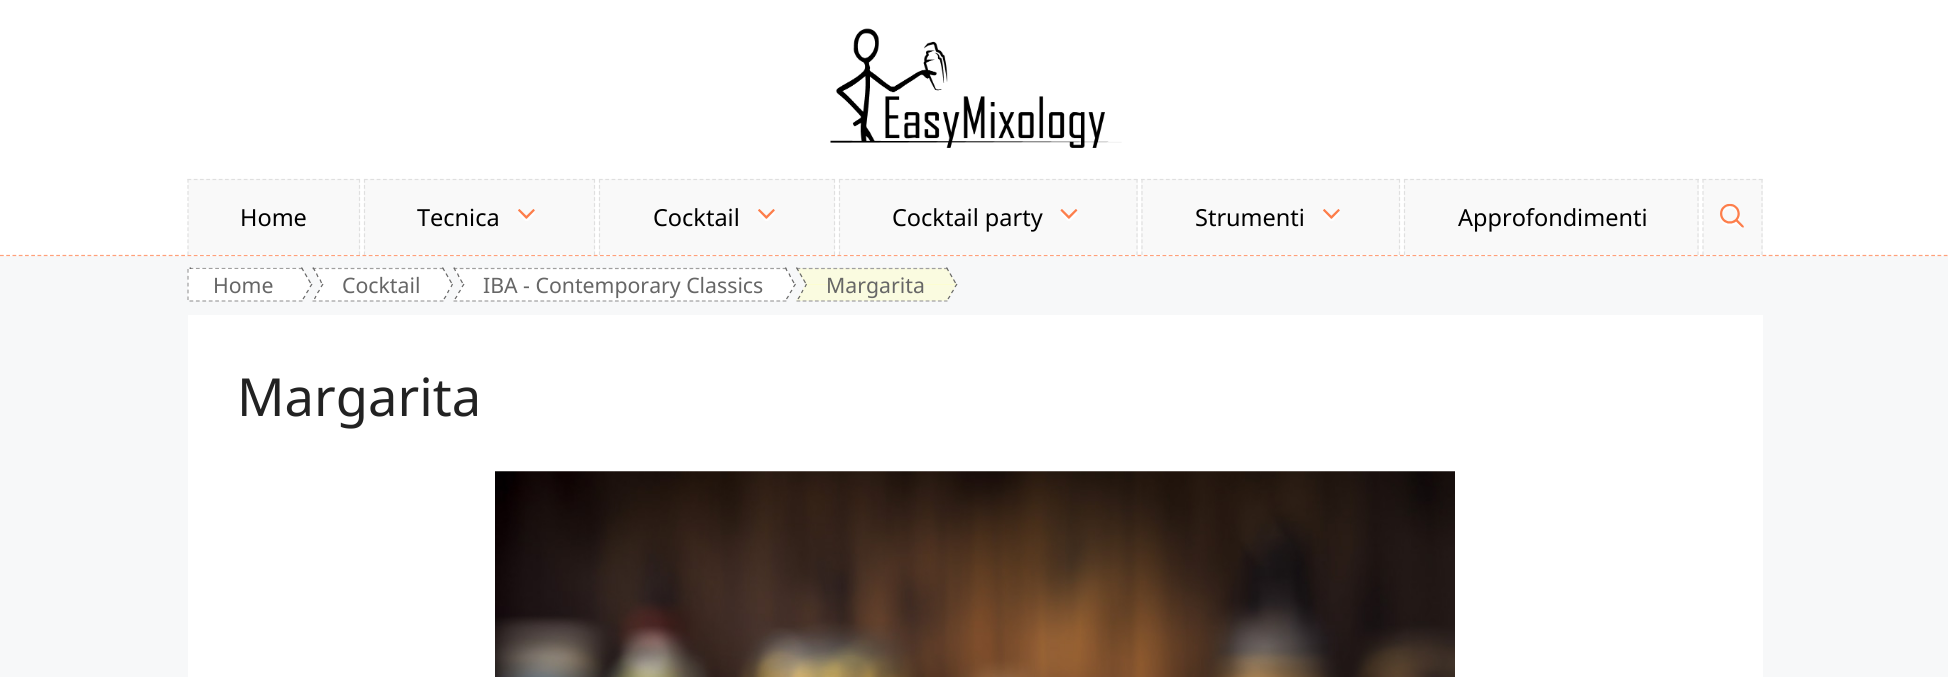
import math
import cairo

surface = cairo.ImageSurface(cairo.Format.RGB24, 1948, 677)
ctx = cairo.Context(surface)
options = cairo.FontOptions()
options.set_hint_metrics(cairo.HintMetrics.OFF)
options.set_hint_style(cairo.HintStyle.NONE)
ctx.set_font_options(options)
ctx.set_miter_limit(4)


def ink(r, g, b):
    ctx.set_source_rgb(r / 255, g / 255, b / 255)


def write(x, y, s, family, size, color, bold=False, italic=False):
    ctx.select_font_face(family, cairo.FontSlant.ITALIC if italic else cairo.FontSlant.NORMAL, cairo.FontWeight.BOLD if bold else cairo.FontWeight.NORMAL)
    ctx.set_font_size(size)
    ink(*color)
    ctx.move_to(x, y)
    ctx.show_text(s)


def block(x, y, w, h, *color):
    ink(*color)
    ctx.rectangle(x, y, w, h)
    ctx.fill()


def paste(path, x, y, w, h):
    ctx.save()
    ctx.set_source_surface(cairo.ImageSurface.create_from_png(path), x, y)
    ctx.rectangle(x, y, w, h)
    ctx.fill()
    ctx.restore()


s1 = dict(family="Noto Sans", size=23.5, color=(0, 0, 0))
s2 = dict(family="Noto Sans", size=21.25, color=(102, 102, 102))
s3 = dict(family="Noto Sans", size=52.5, color=(34, 34, 34))

ink(247, 248, 249)
ctx.paint()
block(0, 0, 1948, 256, 255, 255, 255)
paste("pic1.png", 830, 28, 292, 120)
ctx.new_path()
ctx.move_to(0, 255.5)
ctx.line_to(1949, 255.5)
ink(255, 160, 122)
ctx.set_line_width(1.2)
ctx.set_dash([3.75, 2.5])
ctx.stroke()
block(188, 179, 172, 76, 249, 249, 249)
ctx.new_path()
ctx.move_to(187.5, 179.5)
ctx.line_to(360, 179.5)
ink(223, 223, 223)
ctx.stroke()
ctx.new_path()
ctx.move_to(359.5, 179)
ctx.line_to(359.5, 255)
ctx.set_dash([3.75, 2.29])
ctx.stroke()
ctx.new_path()
ctx.move_to(188, 179)
ctx.line_to(188, 255)
ctx.stroke()
write(240, 226, "Home", **s1)
block(364, 179, 231, 76, 249, 249, 249)
ctx.new_path()
ctx.move_to(364, 179.5)
ctx.line_to(595, 179.5)
ink(223, 223, 223)
ctx.set_dash([3.75, 2.58])
ctx.stroke()
ctx.new_path()
ctx.move_to(594.5, 179)
ctx.line_to(594.5, 255)
ctx.set_dash([3.75, 2.29])
ctx.stroke()
ctx.new_path()
ctx.move_to(364.5, 179)
ctx.line_to(364.5, 255)
ctx.stroke()
write(417, 226, "Tecnica", **s1)
paste("pic2.png", 518, 209, 17, 12)
block(599, 179, 236, 76, 249, 249, 249)
ctx.new_path()
ctx.move_to(599, 179.5)
ctx.line_to(835, 179.5)
ink(223, 223, 223)
ctx.set_dash([3.75, 2.54])
ctx.stroke()
ctx.new_path()
ctx.move_to(834.5, 179)
ctx.line_to(834.5, 255)
ctx.set_dash([3.75, 2.29])
ctx.stroke()
ctx.new_path()
ctx.move_to(599.5, 179)
ctx.line_to(599.5, 255)
ctx.stroke()
write(653, 226, "Cocktail", **s1)
paste("pic3.png", 758, 209, 17, 12)
block(839, 179, 299, 76, 249, 249, 249)
ctx.new_path()
ctx.move_to(839, 179.5)
ctx.line_to(1137.5, 179.5)
ink(223, 223, 223)
ctx.set_dash([3.75, 2.52])
ctx.stroke()
ctx.new_path()
ctx.move_to(1137, 179)
ctx.line_to(1137, 255)
ctx.set_dash([3.75, 2.29])
ctx.stroke()
ctx.new_path()
ctx.move_to(839.5, 179)
ctx.line_to(839.5, 255)
ctx.stroke()
write(892, 226, "Cocktail party", **s1)
paste("pic4.png", 1060, 209, 18, 12)
block(1141, 179, 259, 76, 249, 249, 249)
ctx.new_path()
ctx.move_to(1141, 179.5)
ctx.line_to(1400, 179.5)
ink(223, 223, 223)
ctx.set_dash([3.75, 2.48])
ctx.stroke()
ctx.new_path()
ctx.move_to(1399.5, 179)
ctx.line_to(1399.5, 255)
ctx.set_dash([3.75, 2.29])
ctx.stroke()
ctx.new_path()
ctx.move_to(1142, 179)
ctx.line_to(1142, 255)
ctx.stroke()
write(1195, 226, "Strumenti", **s1)
paste("pic2.png", 1323, 209, 17, 12)
block(1404, 179, 295, 76, 249, 249, 249)
ctx.new_path()
ctx.move_to(1404, 179.5)
ctx.line_to(1699, 179.5)
ink(223, 223, 223)
ctx.set_dash([3.75, 2.45])
ctx.stroke()
ctx.new_path()
ctx.move_to(1698, 179)
ctx.line_to(1698, 255)
ctx.set_dash([3.75, 2.29])
ctx.stroke()
ctx.new_path()
ctx.move_to(1404.5, 179)
ctx.line_to(1404.5, 255)
ctx.stroke()
write(1458, 226, "Approfondimenti", **s1)
block(1703, 179, 60, 76, 249, 249, 249)
ctx.new_path()
ctx.move_to(1702.5, 179.5)
ctx.line_to(1762.5, 179.5)
ink(223, 223, 223)
ctx.set_dash([3.75, 2.5])
ctx.stroke()
ctx.new_path()
ctx.move_to(1762, 179)
ctx.line_to(1762, 255)
ctx.set_dash([3.75, 2.29])
ctx.stroke()
ctx.new_path()
ctx.move_to(1703, 179)
ctx.line_to(1703, 255)
ctx.stroke()
paste("pic5.png", 1720, 203, 24, 25)
ink(255, 255, 255)
ctx.new_path()
ctx.move_to(189, 268)
ctx.line_to(302, 268)
ctx.line_to(312, 285)
ctx.line_to(199, 285)
ctx.close_path()
ctx.fill()
ctx.new_path()
ctx.move_to(189.5, 268.5)
ctx.line_to(302.5, 268.5)
ink(159, 159, 159)
ctx.set_dash([3.75, 2.68])
ctx.stroke()
ctx.new_path()
ctx.move_to(190, 267.5)
ctx.line_to(192, 271)
ctx.move_to(193.5, 273.5)
ctx.line_to(195.5, 277)
ctx.move_to(197, 279.5)
ctx.line_to(198.5, 283)
ink(102, 102, 102)
ctx.set_dash([])
ctx.stroke()
ink(255, 255, 255)
ctx.new_path()
ctx.move_to(199, 284)
ctx.line_to(312, 284)
ctx.line_to(302, 301)
ctx.line_to(189, 301)
ctx.close_path()
ctx.fill()
block(188, 269, 108, 31, 255, 255, 255)
ctx.new_path()
ctx.move_to(188, 269)
ctx.line_to(188, 300)
ink(159, 159, 159)
ctx.set_dash([3.75, 3.12])
ctx.stroke()
ctx.new_path()
ctx.move_to(301.5, 267.5)
ctx.line_to(303.5, 271)
ctx.move_to(305, 273.5)
ctx.line_to(307, 277)
ctx.move_to(308.5, 279.5)
ctx.line_to(310.5, 283)
ink(102, 102, 102)
ctx.set_dash([])
ctx.stroke()
write(213, 293, "Home", **s2)
ctx.new_path()
ctx.move_to(312, 284)
ctx.line_to(310, 287)
ctx.move_to(308.5, 290)
ctx.line_to(306.5, 293)
ctx.move_to(305, 296)
ctx.line_to(303, 299)
ctx.stroke()
ctx.new_path()
ctx.move_to(189.5, 301)
ctx.line_to(302.5, 301)
ink(159, 159, 159)
ctx.set_dash([3.75, 2.68])
ctx.stroke()
ink(255, 255, 255)
ctx.new_path()
ctx.move_to(312, 268)
ctx.line_to(443, 268)
ctx.line_to(453, 285)
ctx.line_to(322, 285)
ctx.close_path()
ctx.fill()
ctx.new_path()
ctx.move_to(312.5, 268.5)
ctx.line_to(443.5, 268.5)
ink(159, 159, 159)
ctx.set_dash([3.75, 2.61])
ctx.stroke()
ctx.new_path()
ctx.move_to(442.5, 267.5)
ctx.line_to(444.5, 271)
ctx.move_to(446, 273.5)
ctx.line_to(448, 277)
ctx.move_to(449.5, 279.5)
ctx.line_to(451.5, 283)
ink(102, 102, 102)
ctx.set_dash([])
ctx.stroke()
ctx.new_path()
ctx.move_to(313, 267.5)
ctx.line_to(315, 271)
ctx.move_to(316.5, 273.5)
ctx.line_to(318, 277)
ctx.move_to(320, 279.5)
ctx.line_to(321.5, 283)
ctx.stroke()
ink(255, 255, 255)
ctx.new_path()
ctx.move_to(322, 284)
ctx.line_to(453, 284)
ctx.line_to(443, 301)
ctx.line_to(312, 301)
ctx.close_path()
ctx.fill()
write(342, 293, "Cocktail", **s2)
ctx.new_path()
ctx.move_to(452.5, 284)
ctx.line_to(451, 287)
ctx.move_to(449, 290)
ctx.line_to(447.5, 293)
ctx.move_to(446, 296)
ctx.line_to(444, 299)
ctx.stroke()
ctx.new_path()
ctx.move_to(312.5, 301)
ctx.line_to(443.5, 301)
ink(159, 159, 159)
ctx.set_dash([3.75, 2.61])
ctx.stroke()
ctx.new_path()
ctx.move_to(323, 284)
ctx.line_to(321, 287)
ctx.move_to(319.5, 290)
ctx.line_to(317.5, 293)
ctx.move_to(316, 296)
ctx.line_to(314.5, 299)
ink(102, 102, 102)
ctx.set_dash([])
ctx.stroke()
ink(255, 255, 255)
ctx.new_path()
ctx.move_to(453, 268)
ctx.line_to(786, 268)
ctx.line_to(796, 285)
ctx.line_to(463, 285)
ctx.close_path()
ctx.fill()
ctx.new_path()
ctx.move_to(453.5, 268.5)
ctx.line_to(786.5, 268.5)
ink(159, 159, 159)
ctx.set_dash([3.75, 2.46])
ctx.stroke()
ctx.new_path()
ctx.move_to(785.5, 267.5)
ctx.line_to(787, 271)
ctx.move_to(789, 273.5)
ctx.line_to(790.5, 277)
ctx.move_to(792, 279.5)
ctx.line_to(794, 283)
ink(102, 102, 102)
ctx.set_dash([])
ctx.stroke()
ctx.new_path()
ctx.move_to(454, 267.5)
ctx.line_to(455.5, 271)
ctx.move_to(457.5, 273.5)
ctx.line_to(459, 277)
ctx.move_to(460.5, 279.5)
ctx.line_to(462.5, 283)
ctx.stroke()
ink(255, 255, 255)
ctx.new_path()
ctx.move_to(463, 284)
ctx.line_to(796, 284)
ctx.line_to(786, 301)
ctx.line_to(453, 301)
ctx.close_path()
ctx.fill()
write(483, 293, "IBA - Contemporary Classics", **s2)
ctx.new_path()
ctx.move_to(795.5, 284)
ctx.line_to(793.5, 287)
ctx.move_to(792, 290)
ctx.line_to(790, 293)
ctx.move_to(788.5, 296)
ctx.line_to(786.5, 299)
ctx.stroke()
ctx.new_path()
ctx.move_to(453.5, 301)
ctx.line_to(786.5, 301)
ink(159, 159, 159)
ctx.set_dash([3.75, 2.46])
ctx.stroke()
ctx.new_path()
ctx.move_to(464, 284)
ctx.line_to(462, 287)
ctx.move_to(460.5, 290)
ctx.line_to(458.5, 293)
ctx.move_to(457, 296)
ctx.line_to(455, 299)
ink(102, 102, 102)
ctx.set_dash([])
ctx.stroke()
ink(250, 251, 224)
ctx.new_path()
ctx.move_to(796, 268)
ctx.line_to(947, 268)
ctx.line_to(957, 285)
ctx.line_to(806, 285)
ctx.close_path()
ctx.fill()
ctx.new_path()
ctx.move_to(796.5, 268.5)
ctx.line_to(947.5, 268.5)
ink(159, 159, 159)
ctx.set_dash([3.75, 2.4])
ctx.stroke()
ctx.new_path()
ctx.move_to(946.5, 267.5)
ctx.line_to(948.5, 271)
ctx.move_to(950, 273.5)
ctx.line_to(952, 277)
ctx.move_to(953.5, 279.5)
ctx.line_to(955.5, 283)
ink(102, 102, 102)
ctx.set_dash([])
ctx.stroke()
ctx.new_path()
ctx.move_to(796.5, 267.5)
ctx.line_to(798.5, 271)
ctx.move_to(800, 273.5)
ctx.line_to(802, 277)
ctx.move_to(803.5, 279.5)
ctx.line_to(805.5, 283)
ctx.stroke()
ctx.set_source_rgba(1, 1, 0.753, 0.43)
ctx.new_path()
ctx.move_to(806, 284)
ctx.line_to(957, 284)
ctx.line_to(947, 301)
ctx.line_to(796, 301)
ctx.close_path()
ctx.fill()
write(826, 293, "Margarita", **s2)
ctx.new_path()
ctx.move_to(957, 284)
ctx.line_to(955, 287)
ctx.move_to(953.5, 290)
ctx.line_to(951.5, 293)
ctx.move_to(950, 296)
ctx.line_to(948, 299)
ctx.stroke()
ctx.new_path()
ctx.move_to(796.5, 301)
ctx.line_to(947.5, 301)
ink(159, 159, 159)
ctx.set_dash([3.75, 2.4])
ctx.stroke()
ctx.new_path()
ctx.move_to(806.5, 284)
ctx.line_to(805, 287)
ctx.move_to(803, 290)
ctx.line_to(801.5, 293)
ctx.move_to(800, 296)
ctx.line_to(798, 299)
ink(102, 102, 102)
ctx.set_dash([])
ctx.stroke()
block(188, 315, 1575, 362, 255, 255, 255)
write(237, 416, "Margarita", **s3)
paste("pic6.png", 495, 471, 960, 206)
surface.write_to_png("screenshot.png")
